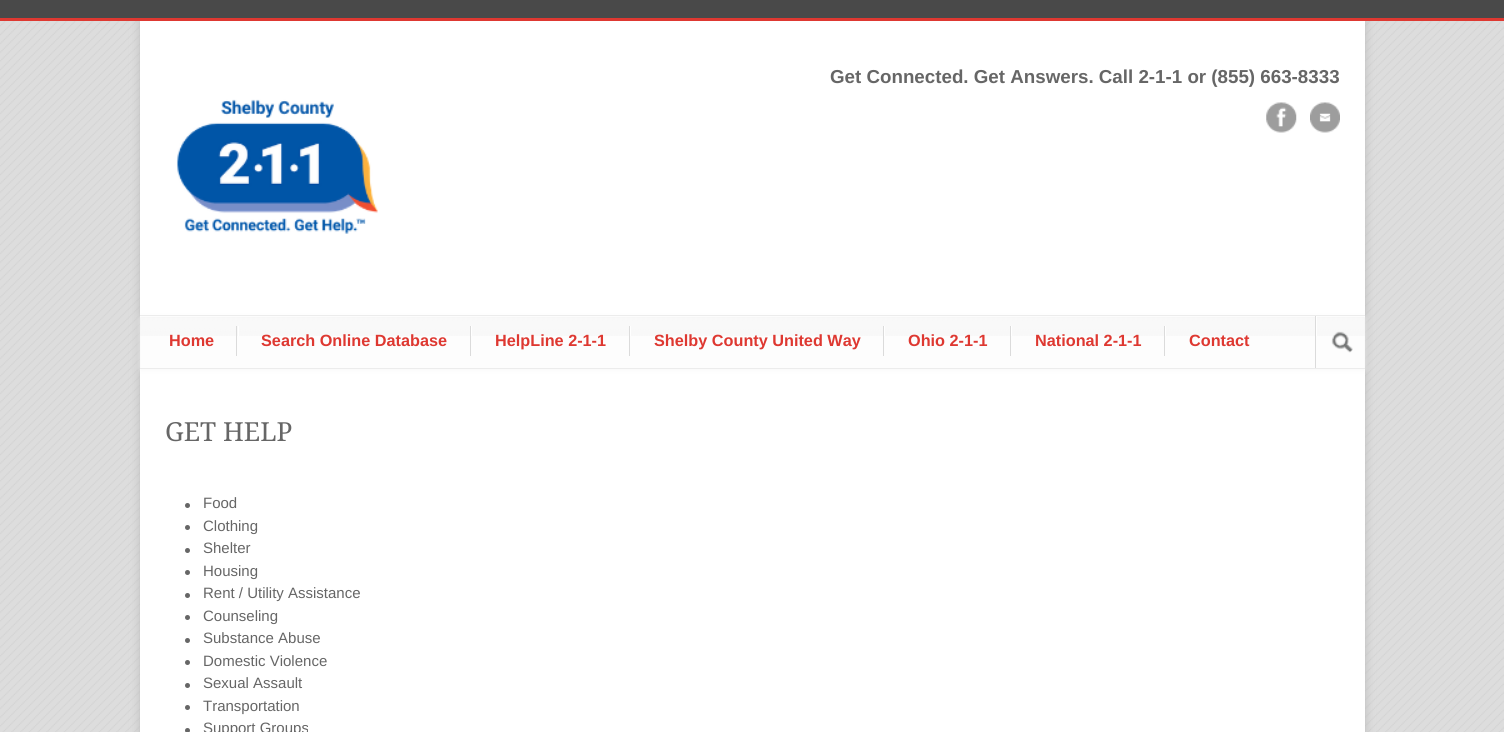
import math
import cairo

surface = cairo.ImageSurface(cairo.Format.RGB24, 1504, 732)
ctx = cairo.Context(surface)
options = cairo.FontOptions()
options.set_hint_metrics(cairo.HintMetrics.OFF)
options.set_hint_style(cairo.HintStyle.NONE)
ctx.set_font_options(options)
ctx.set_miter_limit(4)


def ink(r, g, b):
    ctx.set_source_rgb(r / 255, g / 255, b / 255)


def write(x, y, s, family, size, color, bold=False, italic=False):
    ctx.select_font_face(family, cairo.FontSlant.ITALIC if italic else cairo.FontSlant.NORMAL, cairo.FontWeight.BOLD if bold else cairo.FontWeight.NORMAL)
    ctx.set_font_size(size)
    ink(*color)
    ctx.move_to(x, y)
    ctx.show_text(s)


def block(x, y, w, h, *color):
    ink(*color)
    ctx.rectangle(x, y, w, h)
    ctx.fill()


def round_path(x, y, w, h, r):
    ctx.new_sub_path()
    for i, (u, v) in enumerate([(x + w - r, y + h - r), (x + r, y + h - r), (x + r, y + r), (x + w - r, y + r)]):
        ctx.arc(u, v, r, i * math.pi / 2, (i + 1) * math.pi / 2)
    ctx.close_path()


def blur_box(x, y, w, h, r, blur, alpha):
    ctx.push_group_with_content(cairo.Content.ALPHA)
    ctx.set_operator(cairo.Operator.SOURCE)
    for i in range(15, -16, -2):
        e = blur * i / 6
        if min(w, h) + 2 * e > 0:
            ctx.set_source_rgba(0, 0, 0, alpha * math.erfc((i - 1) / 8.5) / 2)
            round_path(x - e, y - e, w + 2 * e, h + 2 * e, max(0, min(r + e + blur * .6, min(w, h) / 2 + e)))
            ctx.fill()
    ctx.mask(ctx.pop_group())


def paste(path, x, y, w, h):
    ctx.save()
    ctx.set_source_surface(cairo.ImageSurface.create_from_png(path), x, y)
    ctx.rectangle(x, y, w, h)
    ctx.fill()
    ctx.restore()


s1 = dict(family="Liberation Sans", size=18.75, color=(102, 102, 102), bold=True)
s2 = dict(family="Liberation Sans", size=16.25, color=(222, 56, 49), bold=True)
s3 = dict(family="Droid Serif", size=26.25, color=(102, 102, 102))
s4 = dict(family="Liberation Sans", size=15, color=(102, 102, 102))

ink(221, 221, 221)
ctx.paint()
paste("pic1.png", 0, 21, 1504, 711)
ink(187, 187, 187)
blur_box(140, 20, 1225, 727, 0, 5, 1)
block(0, 0, 1504, 18, 73, 73, 73)
block(0, 18, 1504, 3, 222, 56, 49)
block(140, 21, 1225, 711, 255, 255, 255)
write(830, 83, "Get Connected. Get Answers. Call 2-1-1 or (855) 663-8333", **s1)
paste("pic2.png", 1266, 102, 31, 31)
paste("pic3.png", 1310, 102, 30, 31)
paste("pic4.png", 176, 99, 202, 135)
ink(245, 245, 245)
blur_box(141, 318, 1223, 51, 0, 3, 1)
block(141, 318, 1223, 50, 253, 253, 253)
paste("pic5.png", 140, 317, 1225, 19)
block(140, 315, 1225, 1, 236, 236, 236)
block(140, 368, 1225, 1, 236, 236, 236)
block(236, 326, 1, 30, 219, 219, 219)
write(169, 346, "Home", **s2)
block(470, 326, 1, 30, 219, 219, 219)
block(238, 326, 1, 10, 255, 255, 255)
write(261, 346, "Search Online Database", **s2)
block(629, 326, 1, 30, 219, 219, 219)
block(471, 326, 1, 10, 255, 255, 255)
write(495, 346, "HelpLine 2-1-1", **s2)
block(883, 326, 1, 30, 219, 219, 219)
block(630, 326, 1, 10, 255, 255, 255)
write(654, 346, "Shelby County United Way", **s2)
block(1010, 326, 1, 30, 219, 219, 219)
block(884, 326, 1, 10, 255, 255, 255)
write(908, 346, "Ohio 2-1-1", **s2)
block(1164, 326, 1, 30, 219, 219, 219)
block(1011, 326, 1, 10, 255, 255, 255)
write(1035, 346, "National 2-1-1", **s2)
block(1165, 326, 1, 10, 255, 255, 255)
write(1189, 346, "Contact", **s2)
block(1315, 316, 1, 52, 219, 219, 219)
block(1316, 316, 1, 20, 255, 255, 255)
paste("pic6.png", 1331, 331, 22, 22)
write(165, 441, "GET HELP", **s3)
ctx.new_path()
ctx.arc(187.5, 505.5, 2.5, 0, 2 * math.pi)
ctx.fill()
write(203, 508, "Food", **s4)
ctx.new_path()
ctx.arc(187.5, 527.5, 2.5, 0, 2 * math.pi)
ctx.fill()
write(203, 531, "Clothing", **s4)
ctx.new_path()
ctx.arc(187.5, 550.5, 2.5, 0, 2 * math.pi)
ctx.fill()
write(203, 553, "Shelter", **s4)
ctx.new_path()
ctx.arc(187.5, 572.5, 2.5, 0, 2 * math.pi)
ctx.fill()
write(203, 576, "Housing", **s4)
ctx.new_path()
ctx.arc(187.5, 595.5, 2.5, 0, 2 * math.pi)
ctx.fill()
write(203, 598, "Rent / Utility Assistance", **s4)
ctx.new_path()
ctx.arc(187.5, 617.5, 2.5, 0, 2 * math.pi)
ctx.fill()
write(203, 621, "Counseling", **s4)
ctx.new_path()
ctx.arc(187.5, 640.5, 2.5, 0, 2 * math.pi)
ctx.fill()
write(203, 643, "Substance Abuse", **s4)
ctx.new_path()
ctx.arc(187.5, 662.5, 2.5, 0, 2 * math.pi)
ctx.fill()
write(203, 666, "Domestic Violence", **s4)
ctx.new_path()
ctx.arc(187.5, 685.5, 2.5, 0, 2 * math.pi)
ctx.fill()
write(203, 688, "Sexual Assault", **s4)
ctx.new_path()
ctx.arc(187.5, 707.5, 2.5, 0, 2 * math.pi)
ctx.fill()
write(203, 711, "Transportation", **s4)
ctx.new_path()
ctx.arc(187.5, 730.5, 2.5, 0, 2 * math.pi)
ctx.fill()
write(203, 733, "Support Groups", **s4)
surface.write_to_png("screenshot.png")
